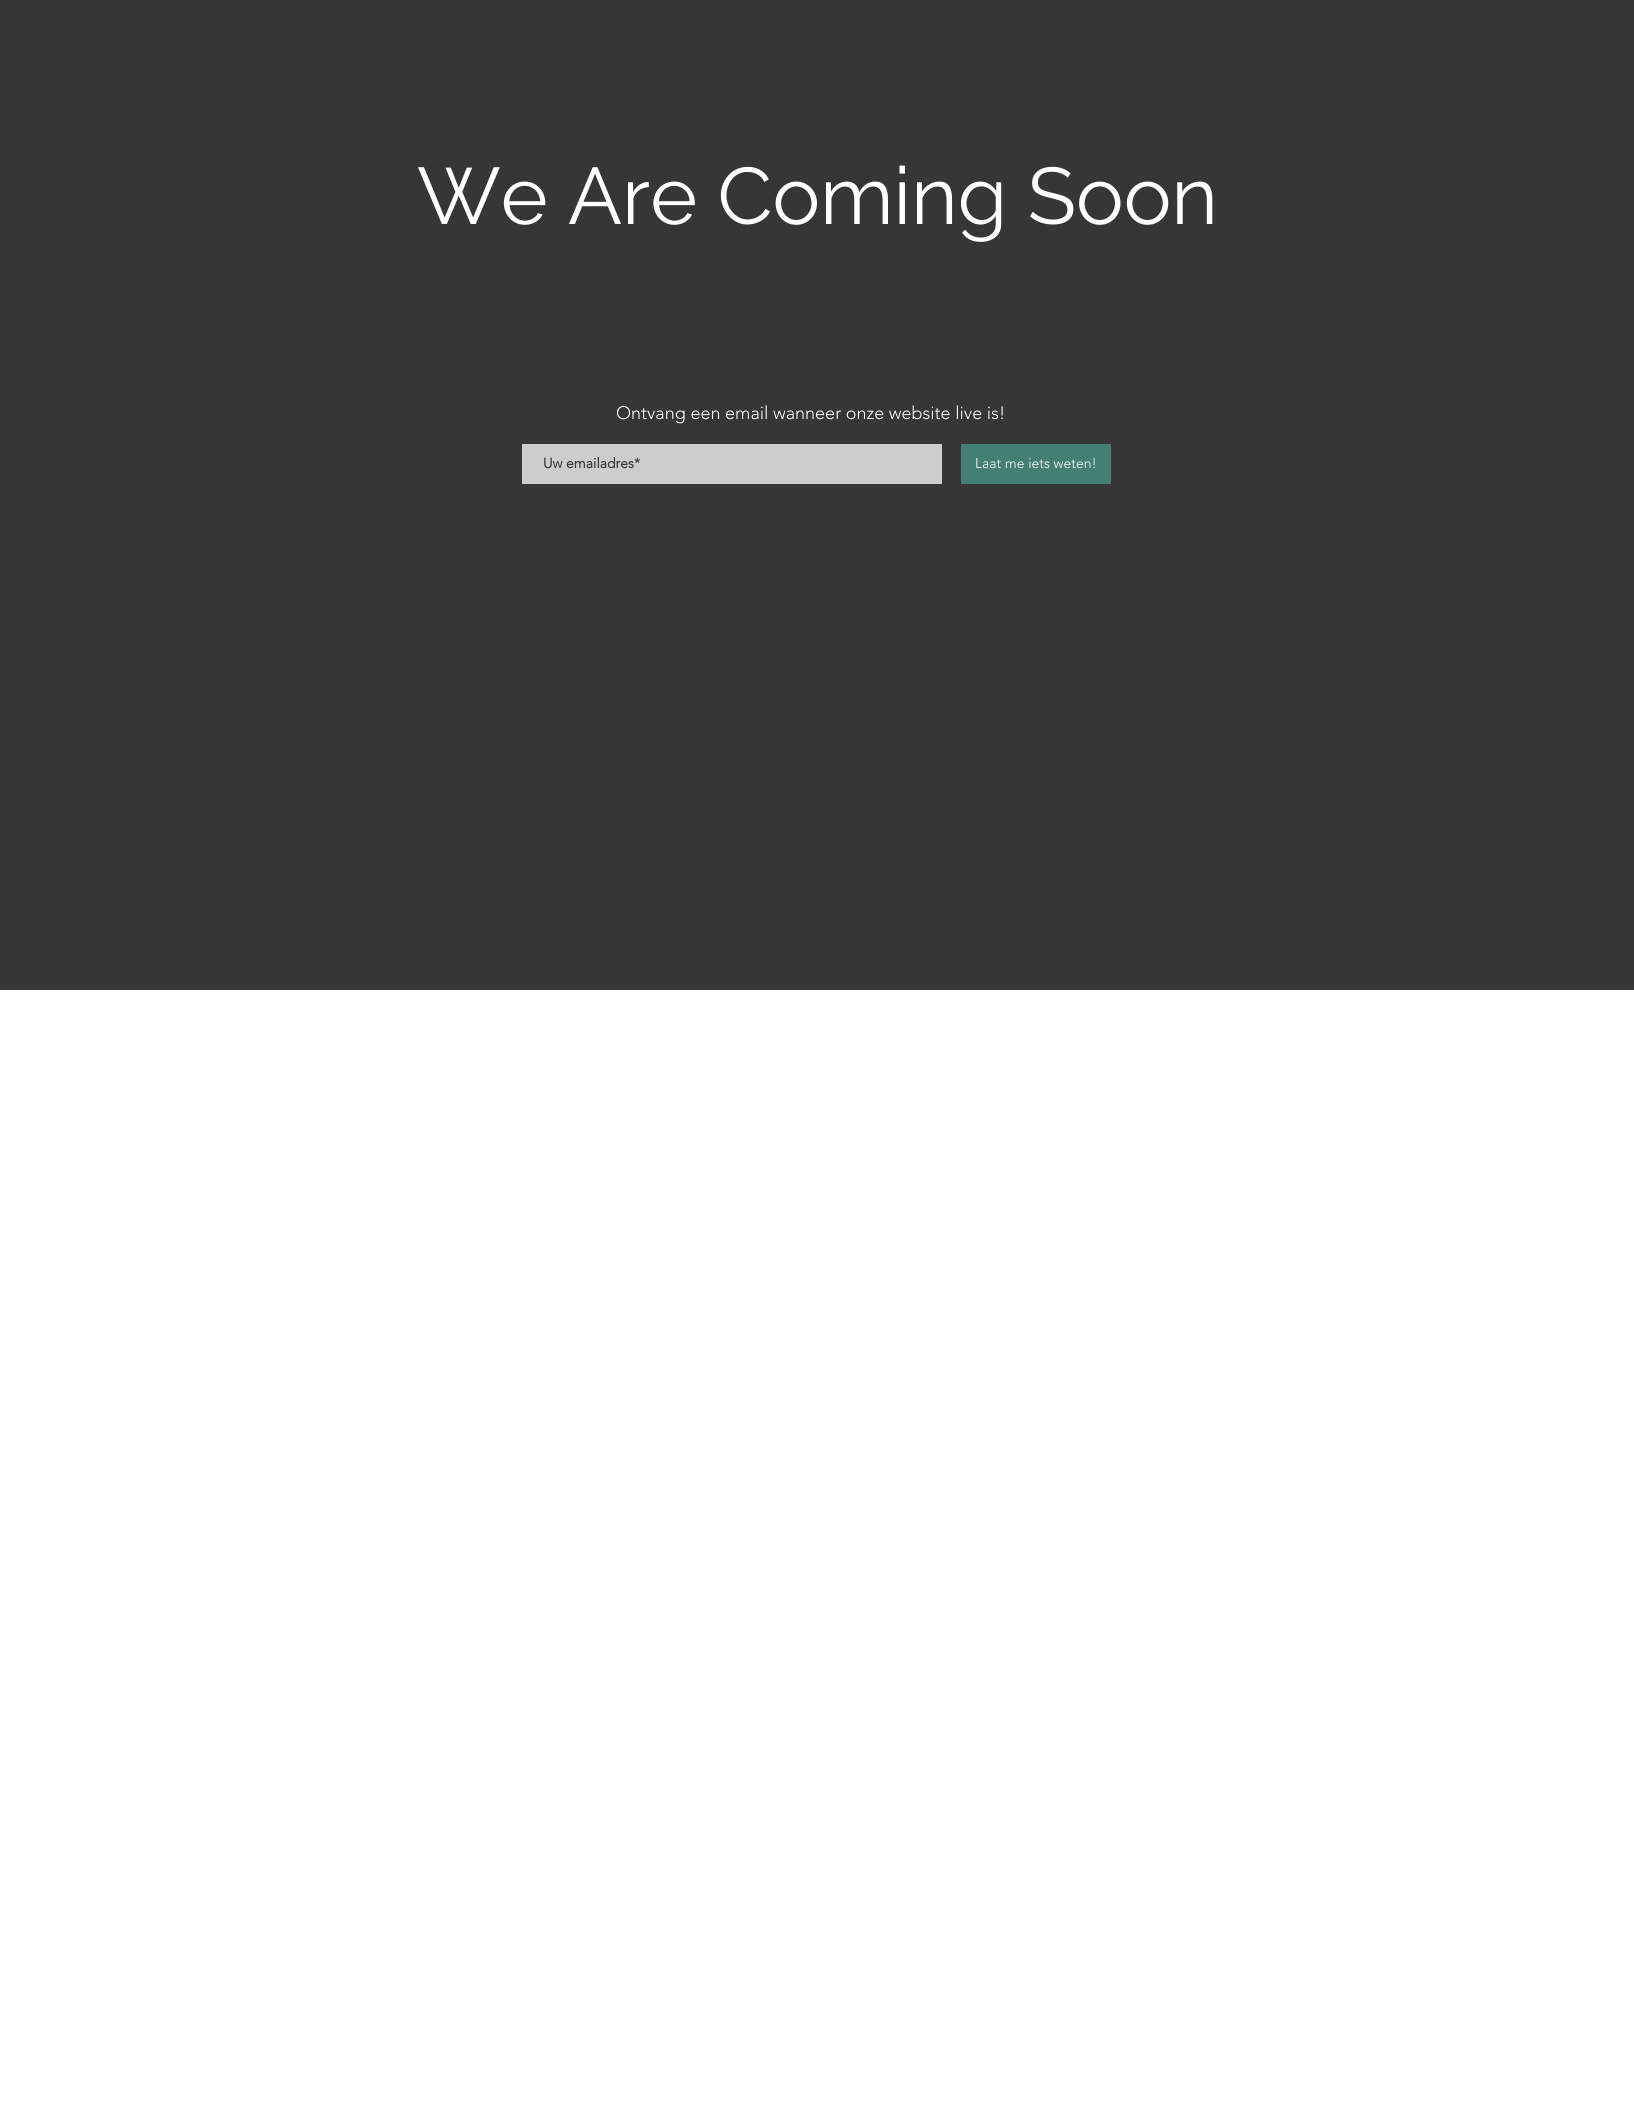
import math
import cairo

surface = cairo.ImageSurface(cairo.Format.RGB24, 1634, 2120)
ctx = cairo.Context(surface)
options = cairo.FontOptions()
options.set_hint_metrics(cairo.HintMetrics.OFF)
options.set_hint_style(cairo.HintStyle.NONE)
ctx.set_font_options(options)
ctx.set_miter_limit(4)


def ink(r, g, b):
    ctx.set_source_rgb(r / 255, g / 255, b / 255)


def write(x, y, s, family, size, color, bold=False, italic=False):
    ctx.select_font_face(family, cairo.FontSlant.ITALIC if italic else cairo.FontSlant.NORMAL, cairo.FontWeight.BOLD if bold else cairo.FontWeight.NORMAL)
    ctx.set_font_size(size)
    ink(*color)
    ctx.move_to(x, y)
    ctx.show_text(s)


def block(x, y, w, h, *color):
    ink(*color)
    ctx.rectangle(x, y, w, h)
    ctx.fill()


s1 = dict(family="Raleway", size=80, color=(255, 255, 255))
s2 = dict(family="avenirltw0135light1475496 Light", size=18, color=(255, 255, 255))
s3 = dict(family="avenirltw0135light1475496", size=14, color=(54, 54, 54), bold=True)
s4 = dict(family="avenirltw0135light1475496 Light", size=14, color=(255, 255, 255))

ink(255, 255, 255)
ctx.paint()
block(0, 0, 1634, 990, 54, 54, 54)
write(417, 224, "We Are Coming Soon", **s1)
write(616, 419, "Ontvang een email wanneer onze website live is!", **s2)
block(522, 444, 420, 40, 205, 205, 205)
write(543, 468, "Uw emailadres*", **s3)
block(961, 444, 150, 40, 68, 127, 116)
write(975, 468, "Laat me iets weten!", **s4)
surface.write_to_png("screenshot.png")
